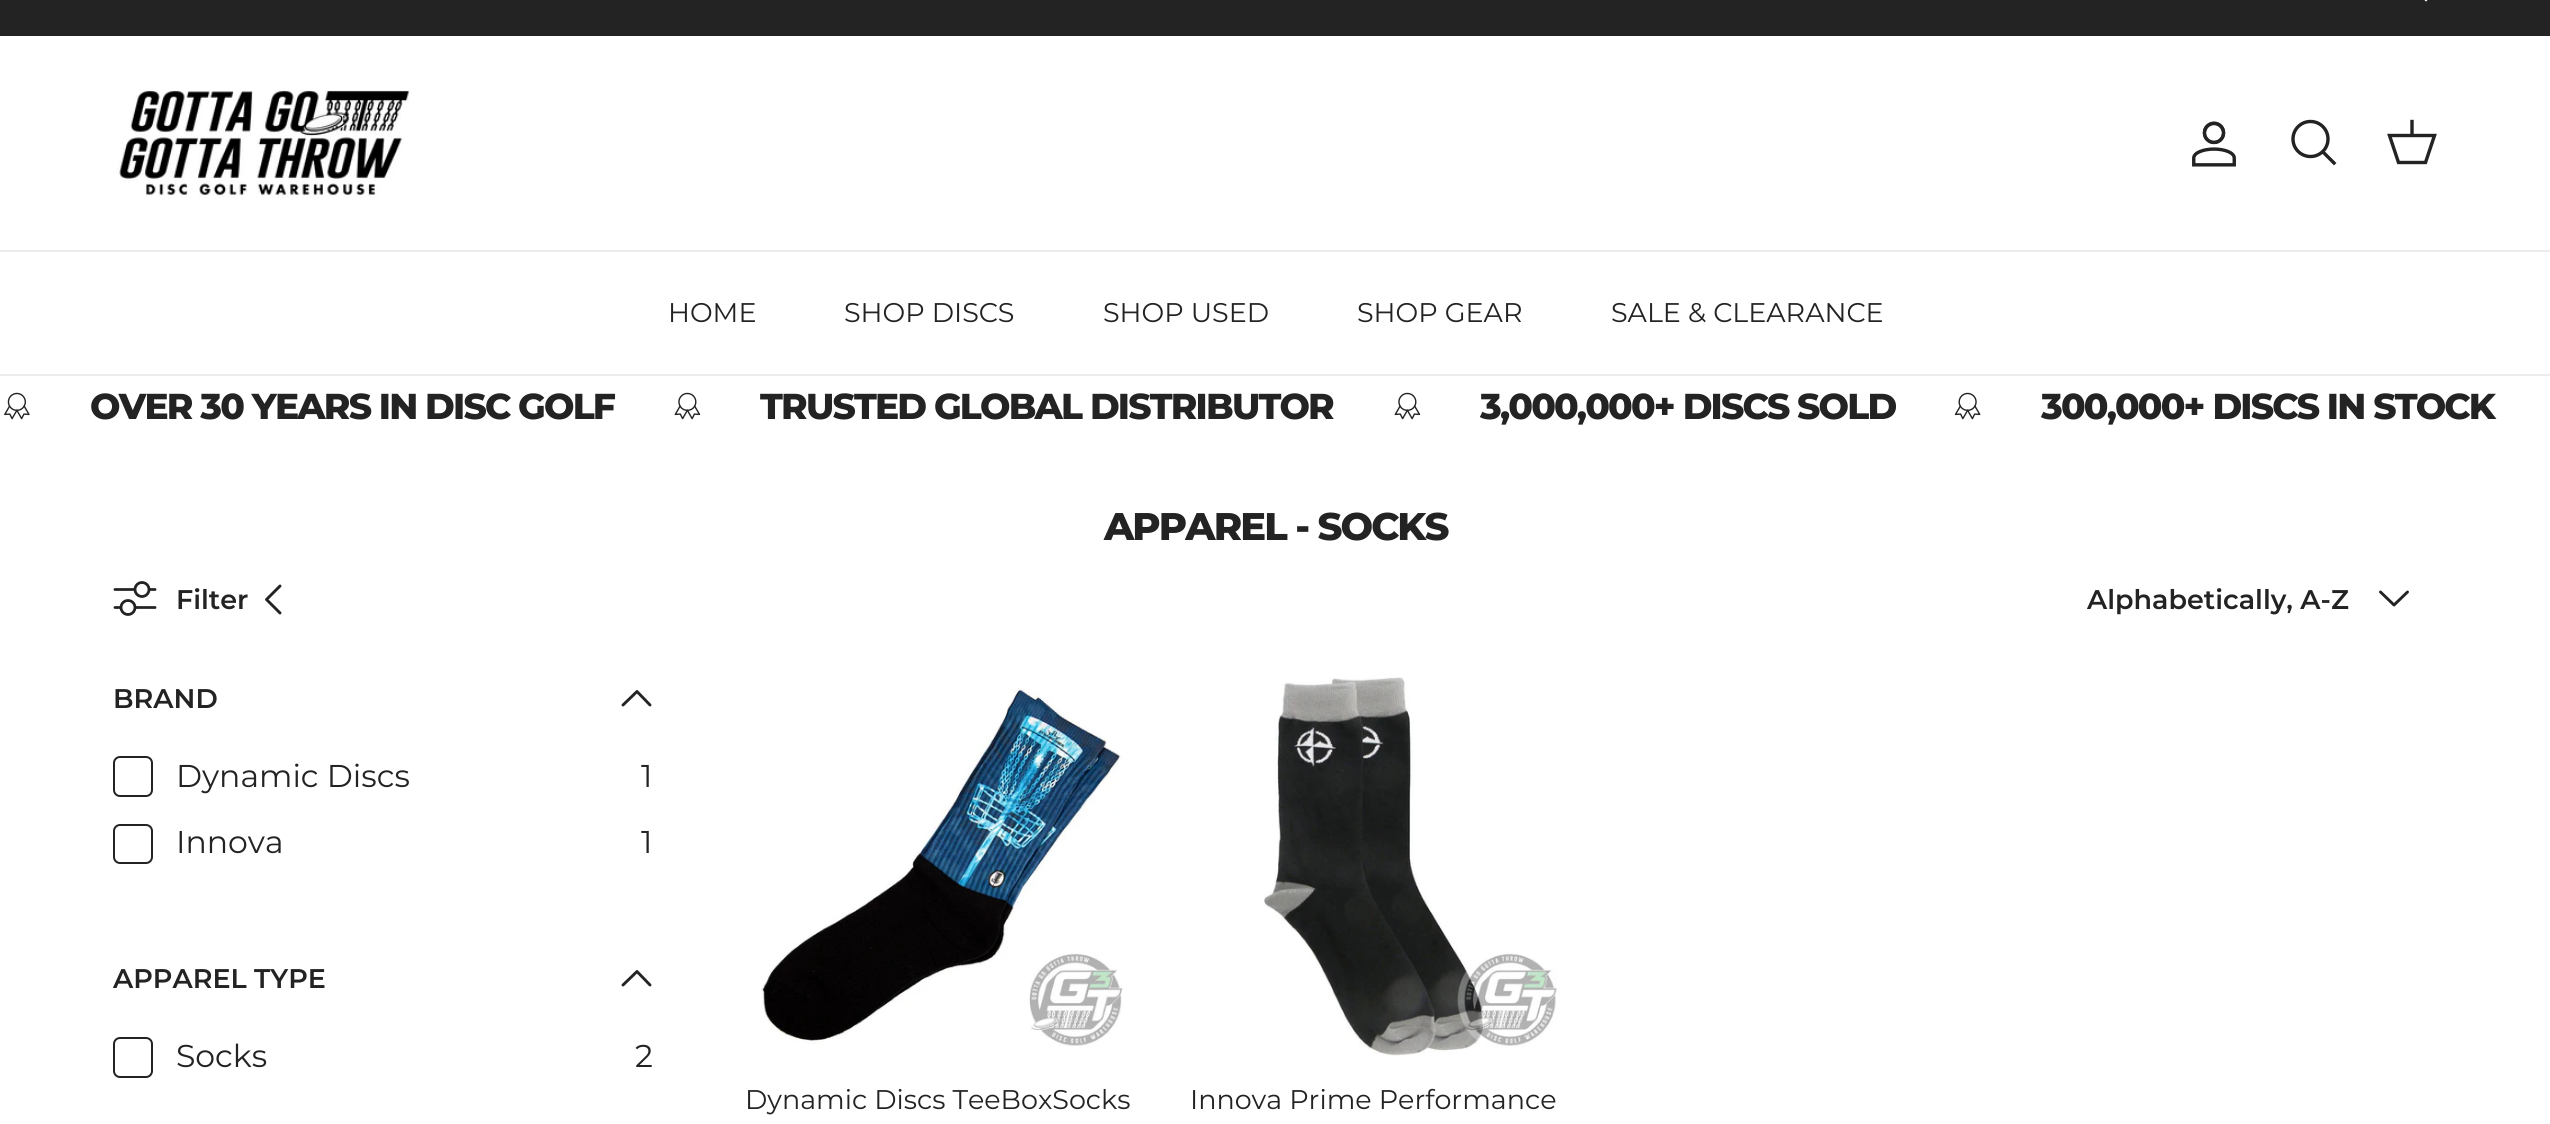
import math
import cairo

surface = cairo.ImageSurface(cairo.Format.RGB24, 2550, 1124)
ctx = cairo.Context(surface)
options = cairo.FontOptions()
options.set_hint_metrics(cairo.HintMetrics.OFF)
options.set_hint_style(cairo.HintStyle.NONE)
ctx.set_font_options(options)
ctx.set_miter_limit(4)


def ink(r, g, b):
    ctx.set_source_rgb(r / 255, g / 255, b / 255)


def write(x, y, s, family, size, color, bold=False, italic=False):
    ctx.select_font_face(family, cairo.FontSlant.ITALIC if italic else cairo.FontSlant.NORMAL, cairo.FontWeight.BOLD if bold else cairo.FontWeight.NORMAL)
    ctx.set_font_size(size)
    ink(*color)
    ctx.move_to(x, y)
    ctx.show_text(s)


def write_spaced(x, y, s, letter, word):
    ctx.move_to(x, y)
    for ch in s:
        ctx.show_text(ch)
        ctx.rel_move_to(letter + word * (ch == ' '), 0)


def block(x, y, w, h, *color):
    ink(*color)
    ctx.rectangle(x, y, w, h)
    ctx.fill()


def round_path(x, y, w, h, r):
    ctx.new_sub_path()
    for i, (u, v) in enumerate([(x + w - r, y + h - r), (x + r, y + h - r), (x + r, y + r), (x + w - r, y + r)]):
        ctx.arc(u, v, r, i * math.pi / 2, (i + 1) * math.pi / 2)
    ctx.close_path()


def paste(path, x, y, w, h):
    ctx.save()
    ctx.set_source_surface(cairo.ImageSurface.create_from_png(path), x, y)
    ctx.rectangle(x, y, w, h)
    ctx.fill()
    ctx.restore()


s1 = dict(family="Montserrat", size=27, color=(35, 35, 35))
s2 = dict(family="Montserrat SemiBold", size=27, color=(35, 35, 35))
s3 = dict(family="Montserrat", size=31.5, color=(35, 35, 35))

ink(255, 255, 255)
ctx.paint()
block(0, 0, 2550, 36, 35, 35, 35)
ctx.new_path()
ctx.move_to(2434.5, -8.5)
ctx.line_to(2426, 0)
ctx.line_to(2417.5, -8.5)
ink(255, 255, 255)
ctx.set_line_width(2.2)
ctx.stroke()
block(0, 250, 2550, 2, 236, 236, 236)
paste("pic1.png", 117, 90, 293, 108)
paste("pic2.png", 2192, 121, 44, 46)
ctx.arc(2310.5, 139, 17.5, 0, 2 * math.pi)
ink(35, 35, 35)
ctx.set_line_width(3.4)
ctx.stroke()
ctx.new_path()
ctx.move_to(2324, 153)
ctx.line_to(2334, 163)
ctx.set_line_cap(cairo.LineCap.SQUARE)
ctx.stroke()
ctx.new_path()
ctx.move_to(2389.5, 135.5)
ctx.line_to(2434.5, 135.5)
ctx.line_to(2425.5, 162.5)
ctx.line_to(2398.5, 162.5)
ctx.close_path()
ctx.set_line_cap(cairo.LineCap.BUTT)
ctx.stroke()
ctx.new_path()
ctx.move_to(2412, 135)
ctx.line_to(2412, 121.5)
ctx.set_line_cap(cairo.LineCap.SQUARE)
ctx.stroke()
block(0, 374, 2550, 2, 236, 236, 236)
write(668, 322, "HOME", **s1)
write(844, 322, "SHOP DISCS", **s1)
write(1103, 322, "SHOP USED", **s1)
write(1357, 322, "SHOP GEAR", **s1)
write(1611, 322, "SALE & CLEARANCE", **s1)
paste("pic3.png", 4, 392, 26, 28)
ctx.select_font_face("Montserrat ExtraBold")
ctx.set_font_size(36)
write_spaced(90, 419, "OVER 30 YEARS IN DISC GOLF", -1.8, 0)
paste("pic4.png", 674, 392, 27, 28)
write_spaced(760, 419, "TRUSTED GLOBAL DISTRIBUTOR", -1.8, 0)
paste("pic4.png", 1394, 392, 27, 28)
write_spaced(1480, 419, "3,000,000+ DISCS SOLD", -1.8, 0)
paste("pic5.png", 1954, 392, 27, 28)
write_spaced(2041, 419, "300,000+ DISCS IN STOCK", -1.8, 0)
ctx.set_font_size(38.5)
write_spaced(1104, 540, "APPAREL - SOCKS", -1.9, 0)
ctx.new_path()
ctx.move_to(115, 589.5)
ctx.line_to(155, 589.5)
ctx.move_to(115, 607.5)
ctx.line_to(155, 607.5)
ctx.set_line_width(2.8)
ctx.set_line_cap(cairo.LineCap.ROUND)
ctx.set_line_join(cairo.LineJoin.ROUND)
ctx.stroke()
ink(255, 255, 255)
ctx.arc(142, 589.5, 7, 0, 2 * math.pi)
ctx.fill_preserve()
ink(35, 35, 35)
ctx.set_line_cap(cairo.LineCap.BUTT)
ctx.set_line_join(cairo.LineJoin.MITER)
ctx.stroke()
ink(255, 255, 255)
ctx.arc(128, 607.5, 7, 0, 2 * math.pi)
ctx.fill_preserve()
ink(35, 35, 35)
ctx.stroke()
write(176, 609, "Filter", **s2)
ctx.new_path()
ctx.move_to(280, 586)
ctx.line_to(266.5, 599.5)
ctx.line_to(280, 613)
ctx.set_line_width(2.9)
ctx.set_line_cap(cairo.LineCap.ROUND)
ctx.set_line_join(cairo.LineJoin.ROUND)
ctx.stroke()
write(2087, 609, "Alphabetically, A-Z", **s2)
ctx.new_path()
ctx.move_to(2380.5, 592)
ctx.line_to(2394, 605)
ctx.line_to(2407.5, 592)
ctx.stroke()
write(113, 708, "BRAND", **s2)
ctx.new_path()
ctx.move_to(650, 705)
ctx.line_to(637, 691.5)
ctx.line_to(623, 705)
ctx.stroke()
round_path(114, 757, 38, 39, 6)
ctx.set_line_width(2)
ctx.set_line_cap(cairo.LineCap.BUTT)
ctx.set_line_join(cairo.LineJoin.MITER)
ctx.stroke()
write(176, 787, "Dynamic Discs", **s3)
write(641, 787, "1", **s3)
round_path(114, 825, 38, 38, 6)
ctx.stroke()
write(176, 853, "Innova", **s3)
write(641, 853, "1", **s3)
write(113, 988, "APPAREL TYPE", **s2)
ctx.new_path()
ctx.move_to(650, 985)
ctx.line_to(637, 971.5)
ctx.line_to(623, 985)
ctx.set_line_width(2.9)
ctx.set_line_cap(cairo.LineCap.ROUND)
ctx.set_line_join(cairo.LineJoin.ROUND)
ctx.stroke()
round_path(114, 1038, 38, 39, 6)
ctx.set_line_width(2)
ctx.set_line_cap(cairo.LineCap.BUTT)
ctx.set_line_join(cairo.LineJoin.MITER)
ctx.stroke()
write(176, 1067, "Socks", **s3)
write(635, 1067, "2", **s3)
paste("pic6.png", 761, 689, 363, 357)
write(745, 1109, "Dynamic Discs TeeBoxSocks", **s1)
paste("pic7.png", 1263, 677, 297, 380)
write(1190, 1109, "Innova Prime Performance", **s1)
surface.write_to_png("screenshot.png")
